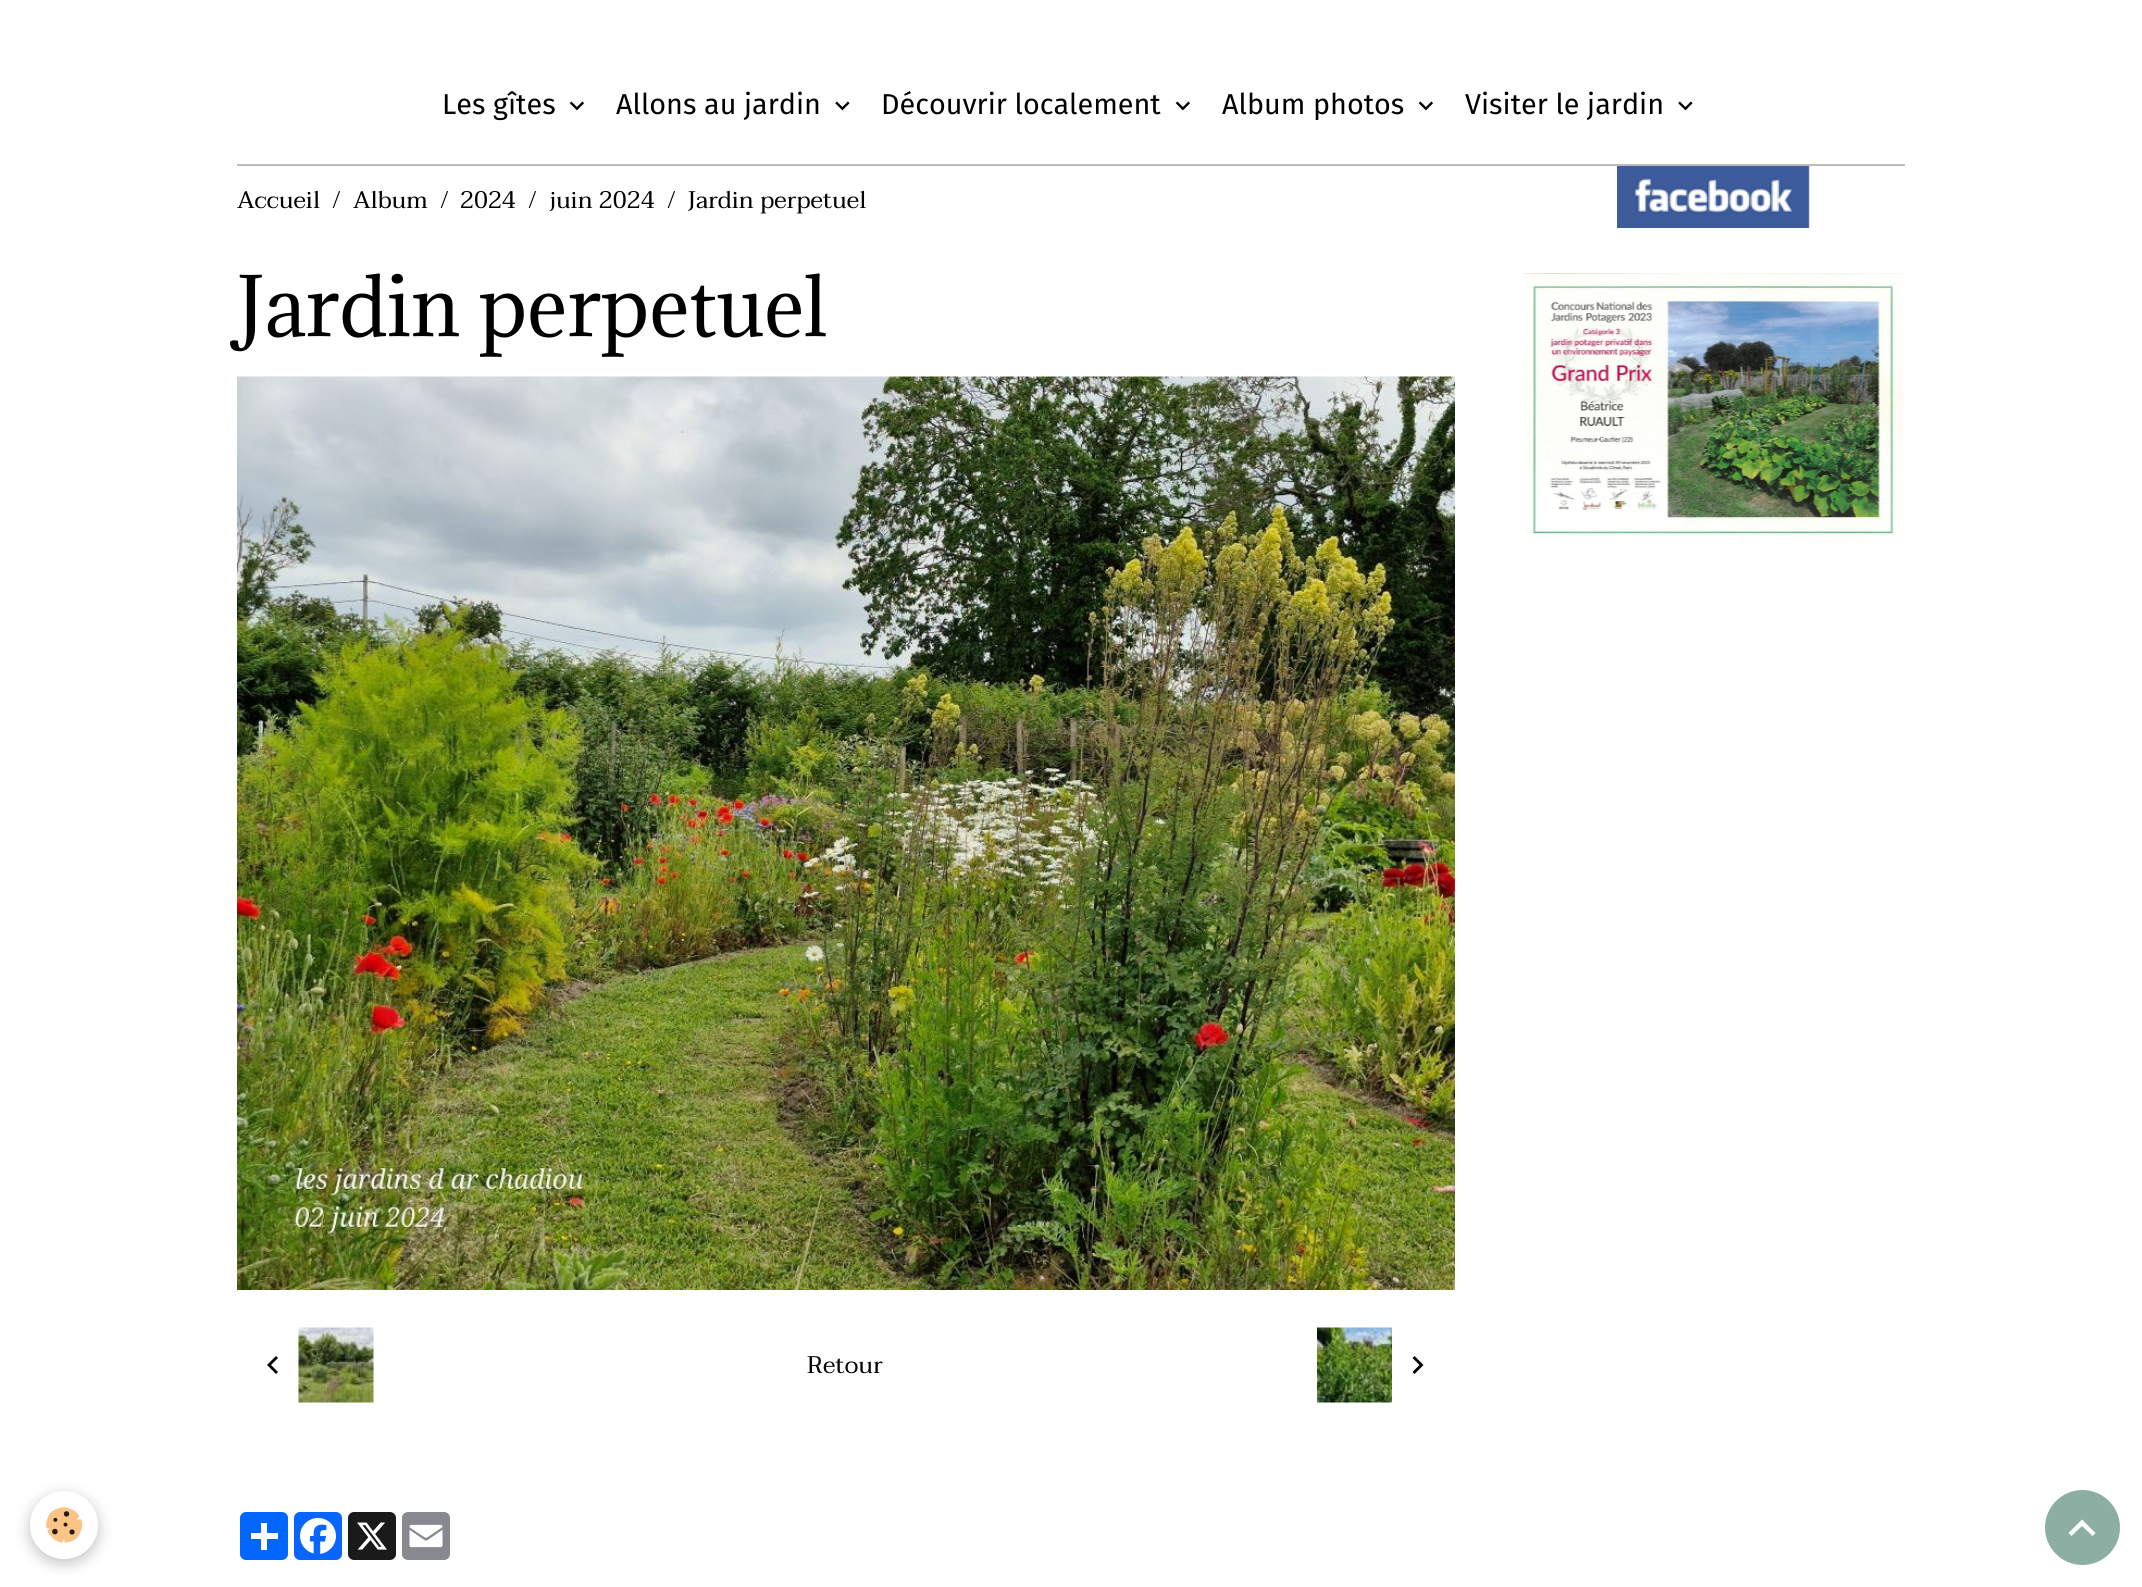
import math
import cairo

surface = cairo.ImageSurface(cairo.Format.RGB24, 2142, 1587)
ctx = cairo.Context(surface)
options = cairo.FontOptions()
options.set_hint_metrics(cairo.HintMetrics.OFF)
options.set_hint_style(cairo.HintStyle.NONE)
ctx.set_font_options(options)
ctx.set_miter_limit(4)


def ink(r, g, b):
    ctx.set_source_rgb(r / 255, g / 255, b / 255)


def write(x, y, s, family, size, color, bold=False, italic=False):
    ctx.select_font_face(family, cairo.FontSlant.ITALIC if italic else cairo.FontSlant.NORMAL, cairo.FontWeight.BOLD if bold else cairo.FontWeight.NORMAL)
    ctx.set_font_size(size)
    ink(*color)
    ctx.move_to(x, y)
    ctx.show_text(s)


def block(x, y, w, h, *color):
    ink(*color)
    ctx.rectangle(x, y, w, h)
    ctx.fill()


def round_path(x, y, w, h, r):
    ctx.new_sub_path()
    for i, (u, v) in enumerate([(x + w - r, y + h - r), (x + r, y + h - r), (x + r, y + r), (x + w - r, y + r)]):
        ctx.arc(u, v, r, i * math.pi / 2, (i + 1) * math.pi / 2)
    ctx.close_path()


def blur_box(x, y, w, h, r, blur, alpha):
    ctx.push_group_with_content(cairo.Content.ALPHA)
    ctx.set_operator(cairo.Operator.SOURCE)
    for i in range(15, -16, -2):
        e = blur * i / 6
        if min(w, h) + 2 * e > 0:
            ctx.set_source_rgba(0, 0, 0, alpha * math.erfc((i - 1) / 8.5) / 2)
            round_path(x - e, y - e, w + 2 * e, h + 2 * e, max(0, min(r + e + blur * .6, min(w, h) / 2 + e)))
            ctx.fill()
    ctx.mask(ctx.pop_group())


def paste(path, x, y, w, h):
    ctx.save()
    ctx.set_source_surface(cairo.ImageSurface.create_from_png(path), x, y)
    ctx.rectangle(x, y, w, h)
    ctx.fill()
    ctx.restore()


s1 = dict(family="Fira Sans", size=28.75, color=(0, 0, 0))
s2 = dict(family="Taviraj", size=24, color=(0, 0, 0))
s3 = dict(family="Adamina", size=76.75, color=(0, 0, 0))

ink(255, 255, 255)
ctx.paint()
block(237, 164, 1668, 2, 188, 188, 188)
write(442, 114, "Les gîtes", **s1)
paste("pic1.png", 569, 101, 15, 10)
write(616, 114, "Allons au jardin", **s1)
paste("pic2.png", 835, 101, 15, 10)
write(881, 114, "Découvrir localement", **s1)
paste("pic1.png", 1175, 101, 15, 10)
write(1222, 114, "Album photos", **s1)
paste("pic1.png", 1418, 101, 15, 10)
write(1465, 114, "Visiter le jardin", **s1)
paste("pic2.png", 1678, 101, 15, 10)
write(237, 208, "Accueil", **s2)
write(332, 208, "/", **s2)
write(353, 208, "Album", **s2)
write(440, 208, "/", **s2)
write(460, 208, "2024", **s2)
write(528, 208, "/", **s2)
write(549, 208, "juin 2024", **s2)
write(667, 208, "/", **s2)
write(687, 208, "Jardin perpetuel", **s2)
write(237, 336, "Jardin perpetuel", **s3)
paste("pic3.png", 237, 376, 1218, 914)
ctx.new_path()
ctx.move_to(278, 1358)
ctx.line_to(271, 1365)
ctx.line_to(278, 1372)
ctx.line_to(276, 1374)
ctx.line_to(267, 1365)
ctx.line_to(276, 1356)
ctx.close_path()
ctx.fill()
paste("pic4.png", 298, 1327, 76, 76)
write(807, 1373, "Retour", **s2)
paste("pic5.png", 1317, 1327, 75, 76)
ctx.new_path()
ctx.move_to(1414.5, 1356)
ctx.line_to(1423.5, 1365)
ctx.line_to(1414.5, 1374)
ctx.line_to(1412.5, 1372)
ctx.line_to(1419.5, 1365)
ctx.line_to(1412.5, 1358)
ctx.close_path()
ctx.fill()
ink(1, 102, 255)
round_path(240, 1512, 48, 48, 6)
ctx.fill()
block(261, 1523, 6, 27, 255, 255, 255)
block(251, 1533, 27, 6, 255, 255, 255)
ink(8, 102, 255)
round_path(294, 1512, 48, 48, 6)
ctx.fill()
paste("pic6.png", 300, 1518, 36, 36)
ink(26, 26, 26)
round_path(348, 1512, 48, 48, 6)
ctx.fill()
paste("pic7.png", 357, 1522, 30, 28)
ink(136, 137, 144)
round_path(402, 1512, 48, 48, 6)
ctx.fill()
paste("pic8.png", 409, 1524, 34, 24)
paste("pic9.png", 1617, 166, 193, 62)
paste("pic10.png", 1523, 273, 382, 270)
ink(0, 0, 0)
blur_box(30, 1496, 68, 67, 33.5, 7.5, 0.24)
ink(255, 255, 255)
ctx.arc(64, 1525, 34, 0, 2 * math.pi)
ctx.fill()
paste("pic11.png", 46, 1507, 37, 36)
ink(140, 175, 164)
ctx.arc(2082.5, 1527.5, 37.5, 0, 2 * math.pi)
ctx.fill()
ink(255, 255, 255)
ctx.new_path()
ctx.move_to(2082, 1519.5)
ctx.line_to(2095.5, 1533)
ctx.line_to(2092.5, 1536)
ctx.line_to(2082, 1526)
ctx.line_to(2071.5, 1536)
ctx.line_to(2068.5, 1533)
ctx.close_path()
ctx.fill()
surface.write_to_png("screenshot.png")
